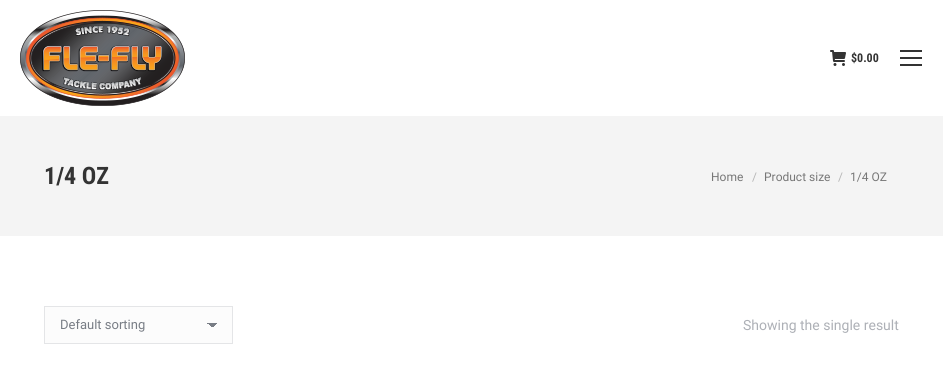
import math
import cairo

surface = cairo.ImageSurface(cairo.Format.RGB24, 943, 386)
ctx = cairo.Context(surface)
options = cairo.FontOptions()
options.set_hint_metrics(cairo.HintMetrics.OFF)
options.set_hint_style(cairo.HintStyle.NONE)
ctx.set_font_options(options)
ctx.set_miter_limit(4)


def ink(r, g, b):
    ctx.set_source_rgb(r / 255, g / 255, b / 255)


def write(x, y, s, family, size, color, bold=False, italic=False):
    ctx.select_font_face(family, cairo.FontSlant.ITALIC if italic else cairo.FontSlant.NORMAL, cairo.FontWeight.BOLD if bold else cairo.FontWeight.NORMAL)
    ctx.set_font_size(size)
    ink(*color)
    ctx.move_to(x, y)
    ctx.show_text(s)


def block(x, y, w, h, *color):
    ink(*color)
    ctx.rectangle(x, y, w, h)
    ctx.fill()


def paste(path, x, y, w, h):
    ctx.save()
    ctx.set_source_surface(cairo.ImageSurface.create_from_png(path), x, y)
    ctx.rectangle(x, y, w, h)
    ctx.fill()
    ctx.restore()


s1 = dict(family="Roboto Condensed", size=12, color=(51, 51, 51), bold=True)
s2 = dict(family="Roboto Condensed", size=24, color=(51, 51, 51), bold=True)
s3 = dict(family="Roboto", size=12, color=(119, 119, 119))
s4 = dict(family="Roboto", size=12, color=(182, 182, 182))
s5 = dict(family="Roboto", size=13, color=(120, 125, 133))
s6 = dict(family="Roboto", size=14, color=(173, 176, 182))

ink(255, 255, 255)
ctx.paint()
paste("pic1.png", 20, 10, 165, 96)
paste("pic2.png", 830, 50, 16, 16)
write(851, 62, "$0.00", **s1)
block(900, 50, 22, 2, 51, 51, 51)
block(900, 57, 22, 2, 51, 51, 51)
block(900, 64, 22, 2, 51, 51, 51)
block(0, 116, 943, 120, 244, 244, 244)
write(44, 184, "1/4 OZ", **s2)
write(711, 181, "Home", **s3)
write(752, 181, "/", **s4)
write(764, 181, "Product size", **s3)
write(838, 181, "/", **s4)
write(850, 181, "1/4 OZ", **s3)
block(45, 307, 187, 36, 252, 252, 252)
gradient = cairo.LinearGradient(212, 323, 217, 328)
gradient.add_color_stop_rgba(0.5, 0.471, 0.49, 0.522, 1)
gradient.add_color_stop_rgba(0.5, 0.988, 0.988, 0.988, 1)
ctx.set_source(gradient)
ctx.rectangle(212, 323, 5, 4)
ctx.fill()
gradient = cairo.LinearGradient(207, 328, 212, 323)
gradient.add_color_stop_rgba(0.5, 0.988, 0.988, 0.988, 1)
gradient.add_color_stop_rgba(0.5, 0.471, 0.49, 0.522, 1)
ctx.set_source(gradient)
ctx.rectangle(207, 323, 5, 4)
ctx.fill()
ctx.rectangle(44.5, 306.5, 188, 37)
ink(228, 229, 231)
ctx.set_line_width(1)
ctx.stroke()
write(60, 329, "Default sorting", **s5)
write(743, 330, "Showing the single result", **s6)
surface.write_to_png("screenshot.png")
